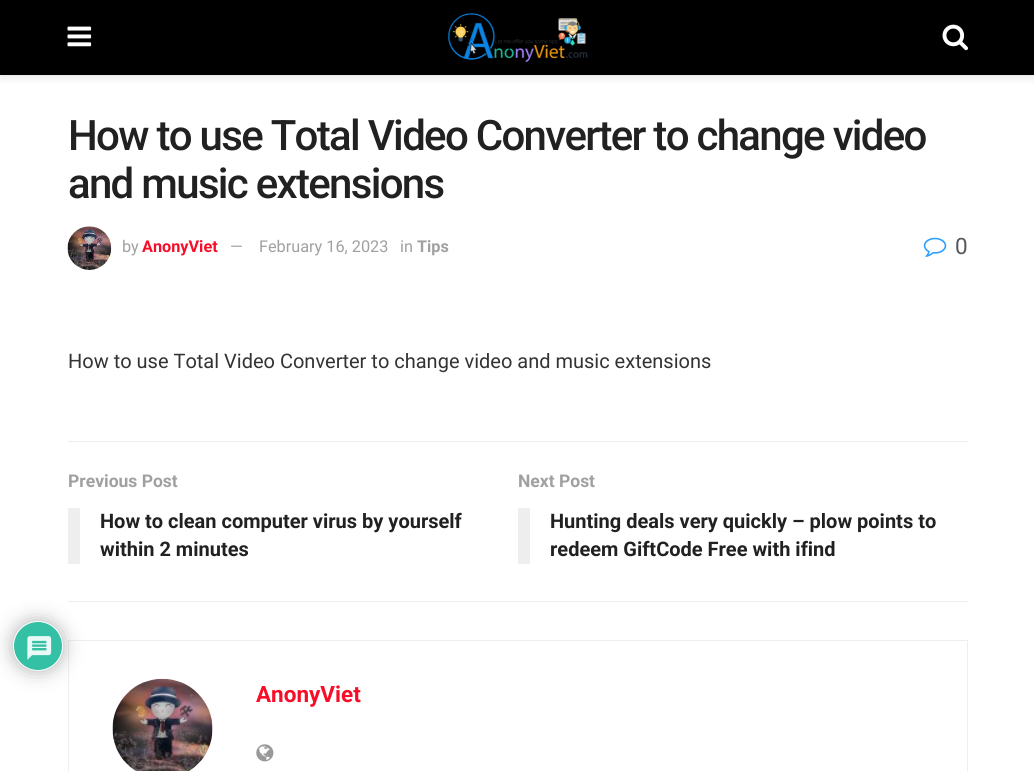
import math
import cairo

surface = cairo.ImageSurface(cairo.Format.RGB24, 1034, 771)
ctx = cairo.Context(surface)
options = cairo.FontOptions()
options.set_hint_metrics(cairo.HintMetrics.OFF)
options.set_hint_style(cairo.HintStyle.NONE)
ctx.set_font_options(options)
ctx.set_miter_limit(4)


def ink(r, g, b):
    ctx.set_source_rgb(r / 255, g / 255, b / 255)


def write(x, y, s, family, size, color, bold=False, italic=False):
    ctx.select_font_face(family, cairo.FontSlant.ITALIC if italic else cairo.FontSlant.NORMAL, cairo.FontWeight.BOLD if bold else cairo.FontWeight.NORMAL)
    ctx.set_font_size(size)
    ink(*color)
    ctx.move_to(x, y)
    ctx.show_text(s)


def write_spaced(x, y, s, letter, word):
    ctx.move_to(x, y)
    for ch in s:
        ctx.show_text(ch)
        ctx.rel_move_to(letter + word * (ch == ' '), 0)


def block(x, y, w, h, *color):
    ink(*color)
    ctx.rectangle(x, y, w, h)
    ctx.fill()


def round_path(x, y, w, h, r):
    ctx.new_sub_path()
    for i, (u, v) in enumerate([(x + w - r, y + h - r), (x + r, y + h - r), (x + r, y + r), (x + w - r, y + r)]):
        ctx.arc(u, v, r, i * math.pi / 2, (i + 1) * math.pi / 2)
    ctx.close_path()


def blur_box(x, y, w, h, r, blur, alpha):
    ctx.push_group_with_content(cairo.Content.ALPHA)
    ctx.set_operator(cairo.Operator.SOURCE)
    for i in range(15, -16, -2):
        e = blur * i / 6
        if min(w, h) + 2 * e > 0:
            ctx.set_source_rgba(0, 0, 0, alpha * math.erfc((i - 1) / 8.5) / 2)
            round_path(x - e, y - e, w + 2 * e, h + 2 * e, max(0, min(r + e + blur * .6, min(w, h) / 2 + e)))
            ctx.fill()
    ctx.mask(ctx.pop_group())


def paste(path, x, y, w, h):
    ctx.save()
    ctx.set_source_surface(cairo.ImageSurface.create_from_png(path), x, y)
    ctx.rectangle(x, y, w, h)
    ctx.fill()
    ctx.restore()


s1 = dict(family="Roboto", size=16.25, color=(160, 160, 160))
s2 = dict(family="Roboto", size=16.25, color=(247, 13, 40), bold=True)
s3 = dict(family="Roboto", size=16.25, color=(160, 160, 160), bold=True)
s4 = dict(family="Roboto", size=22.5, color=(83, 88, 92))
s5 = dict(family="Roboto", size=20, color=(51, 51, 51))
s6 = dict(family="Roboto", size=17.5, color=(160, 160, 160), bold=True)
s7 = dict(family="Roboto", size=20, color=(33, 33, 33), bold=True)
s8 = dict(family="Roboto", size=22.5, color=(247, 13, 40), bold=True)

ink(255, 255, 255)
ctx.paint()
block(68, 601, 900, 1, 238, 238, 238)
ctx.rectangle(68.5, 640.5, 899, 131)
ctx.set_line_width(1)
ctx.stroke()
ink(170, 170, 170)
blur_box(13, 621, 50, 50, 25, 9.5, 0.9)
ink(52, 192, 164)
ctx.arc(38, 646, 24.5, 0, 2 * math.pi)
ctx.fill_preserve()
ink(255, 255, 255)
ctx.stroke()
paste("pic1.png", 27, 636, 25, 24)
ink(0, 0, 0)
blur_box(0, 3, 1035, 75, 0, 4, 0.1)
block(0, 0, 1034, 75, 0, 0, 0)
paste("pic2.png", 67, 26, 25, 21)
paste("pic3.png", 448, 13, 140, 50)
paste("pic4.png", 942, 24, 26, 27)
ctx.select_font_face("Roboto Medium")
ctx.set_font_size(42)
ink(33, 33, 33)
write_spaced(68, 150, "How to use Total Video Converter to change video", -1.7, 0)
write_spaced(68, 198, "and music extensions", -1.7, 0)
paste("pic5.png", 67, 226, 45, 44)
write(122, 252, "by", **s1)
write(142, 252, "AnonyViet", **s2)
write(230, 252, "—", **s1)
write(259, 252, "February 16, 2023", **s1)
write(400, 252, "in", **s1)
write(417, 252, "Tips", **s3)
paste("pic6.png", 923, 237, 24, 20)
write(955, 254, "0", **s4)
write(68, 368, "How to use Total Video Converter to change video and music extensions", **s5)
block(68, 441, 900, 1, 238, 238, 238)
write(68, 487, "Previous Post", **s6)
block(68, 508, 12, 56, 238, 238, 238)
write(100, 528, "How to clean computer virus by yourself", **s7)
write(100, 556, "within 2 minutes", **s7)
write(518, 487, "Next Post", **s6)
block(518, 508, 12, 56, 238, 238, 238)
write(550, 528, "Hunting deals very quickly – plow points to", **s7)
write(550, 556, "redeem GiftCode Free with ifind", **s7)
paste("pic7.png", 112, 678, 101, 93)
write(256, 702, "AnonyViet", **s8)
paste("pic8.png", 256, 744, 18, 18)
surface.write_to_png("screenshot.png")
